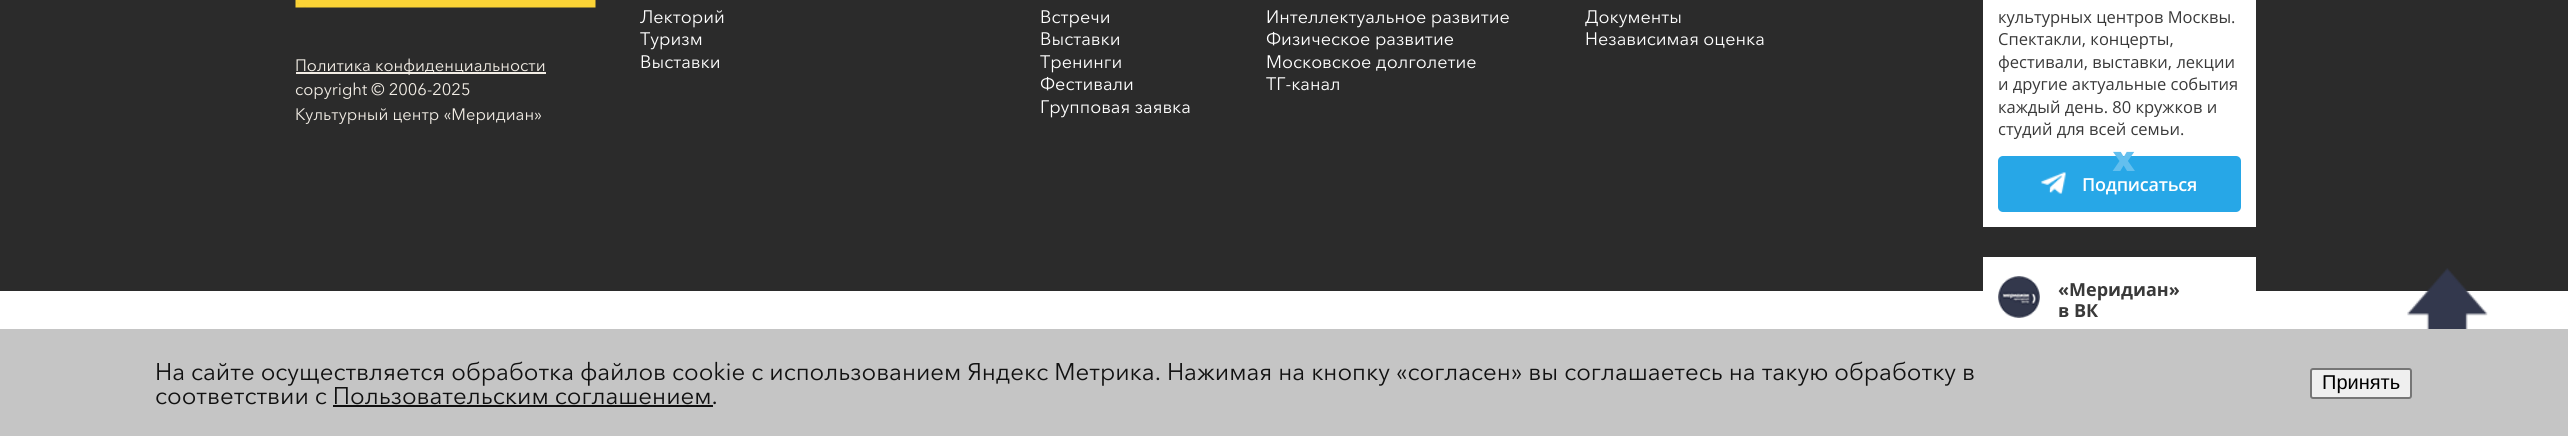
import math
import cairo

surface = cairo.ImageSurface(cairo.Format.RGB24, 2568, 436)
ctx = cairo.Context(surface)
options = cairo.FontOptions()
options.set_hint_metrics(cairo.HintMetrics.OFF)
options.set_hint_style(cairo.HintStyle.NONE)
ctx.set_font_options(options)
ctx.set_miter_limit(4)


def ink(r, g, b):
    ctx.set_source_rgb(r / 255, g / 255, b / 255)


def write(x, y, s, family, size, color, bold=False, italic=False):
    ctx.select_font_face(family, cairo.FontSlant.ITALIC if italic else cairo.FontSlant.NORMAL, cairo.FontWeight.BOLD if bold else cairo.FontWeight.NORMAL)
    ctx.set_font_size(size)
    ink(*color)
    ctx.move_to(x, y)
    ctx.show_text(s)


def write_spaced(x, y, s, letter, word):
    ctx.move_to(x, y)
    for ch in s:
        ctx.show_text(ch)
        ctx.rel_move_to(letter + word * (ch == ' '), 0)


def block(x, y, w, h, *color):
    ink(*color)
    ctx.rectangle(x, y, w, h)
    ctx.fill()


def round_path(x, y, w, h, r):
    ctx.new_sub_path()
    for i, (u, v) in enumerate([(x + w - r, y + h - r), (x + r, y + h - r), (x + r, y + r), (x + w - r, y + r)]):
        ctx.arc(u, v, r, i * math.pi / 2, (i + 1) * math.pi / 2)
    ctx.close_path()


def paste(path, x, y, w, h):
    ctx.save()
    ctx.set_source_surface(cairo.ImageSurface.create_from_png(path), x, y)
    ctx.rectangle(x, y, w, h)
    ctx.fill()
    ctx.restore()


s1 = dict(family="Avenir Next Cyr", size=18, color=(255, 255, 255))
s2 = dict(family="Avenir Next Cyr", size=16.5, color=(242, 237, 229))
s3 = dict(family="Open Sans", size=16.5, color=(57, 57, 57))
s4 = dict(family="Open Sans", size=18, color=(57, 57, 57), bold=True)
s5 = dict(family="Avenir Next Cyr Black", size=27, color=(99, 191, 238))
s6 = dict(family="Avenir Next Cyr", size=24, color=(17, 17, 17))
s7 = dict(family="Liberation Sans", size=20, color=(0, 0, 0))

ink(255, 255, 255)
ctx.paint()
block(0, 0, 2568, 291, 43, 43, 43)
write(640, 23, "Лекторий", **s1)
write(640, 45, "Туризм", **s1)
write(640, 68, "Выставки", **s1)
write(1040, 23, "Встречи", **s1)
write(1040, 45, "Выставки", **s1)
write(1040, 68, "Тренинги", **s1)
write(1040, 90, "Фестивали", **s1)
write(1040, 113, "Групповая заявка", **s1)
write(1266, 23, "Интеллектуальное развитие", **s1)
write(1266, 45, "Физическое развитие", **s1)
write(1266, 68, "Московское долголетие", **s1)
write(1266, 90, "ТГ-канал", **s1)
write(1585, 23, "Документы", **s1)
write(1585, 45, "Независимая оценка", **s1)
paste("pic1.png", 295, 0, 301, 8)
block(296, 72, 250, 2, 242, 237, 229)
write(295, 71, "Политика конфиденциальности", **s2)
write(295, 95, "copyright © 2006-2025", **s2)
write(295, 120, "Культурный центр «Меридиан»", **s2)
block(1983, 0, 273, 227, 255, 255, 255)
write(1998, 23, "культурных центров Москвы.", **s3)
write(1998, 45, "Спектакли, концерты,", **s3)
write(1998, 68, "фестивали, выставки, лекции", **s3)
write(1998, 90, "и другие актуальные события", **s3)
write(1998, 113, "каждый день. 80 кружков и", **s3)
write(1998, 135, "студий для всей семьи.", **s3)
ink(39, 167, 231)
round_path(1998, 156, 243, 56, 5)
ctx.fill()
paste("pic2.png", 2041, 172, 25, 22)
ctx.select_font_face("Open Sans SemiBold")
ctx.set_font_size(18)
ink(255, 255, 255)
write_spaced(2082, 191, "Подписаться", -0.25, 0)
block(1983, 257, 273, 34, 255, 255, 255)
paste("pic3.png", 1998, 276, 42, 42)
write(2058, 296, "«Меридиан»", **s4)
write(2058, 317, "в ВК", **s4)
write(2113, 171, "X", **s5)
paste("pic4.png", 2407, 268, 81, 61)
block(0, 329, 2568, 107, 197, 197, 197)
write(155, 380, "На сайте осуществляется обработка файлов cookie с использованием Яндекс Метрика. Нажимая на кнопку «согласен» вы соглашаетесь на такую обработку в", **s6)
write(155, 404, "соответствии с Пользовательским соглашением.", **s6)
block(333, 405, 380, 2, 17, 17, 17)
ink(239, 239, 239)
round_path(2311, 369, 100, 29, 2)
ctx.fill_preserve()
ink(118, 118, 118)
ctx.stroke()
write(2322, 389, "Принять", **s7)
surface.write_to_png("screenshot.png")
